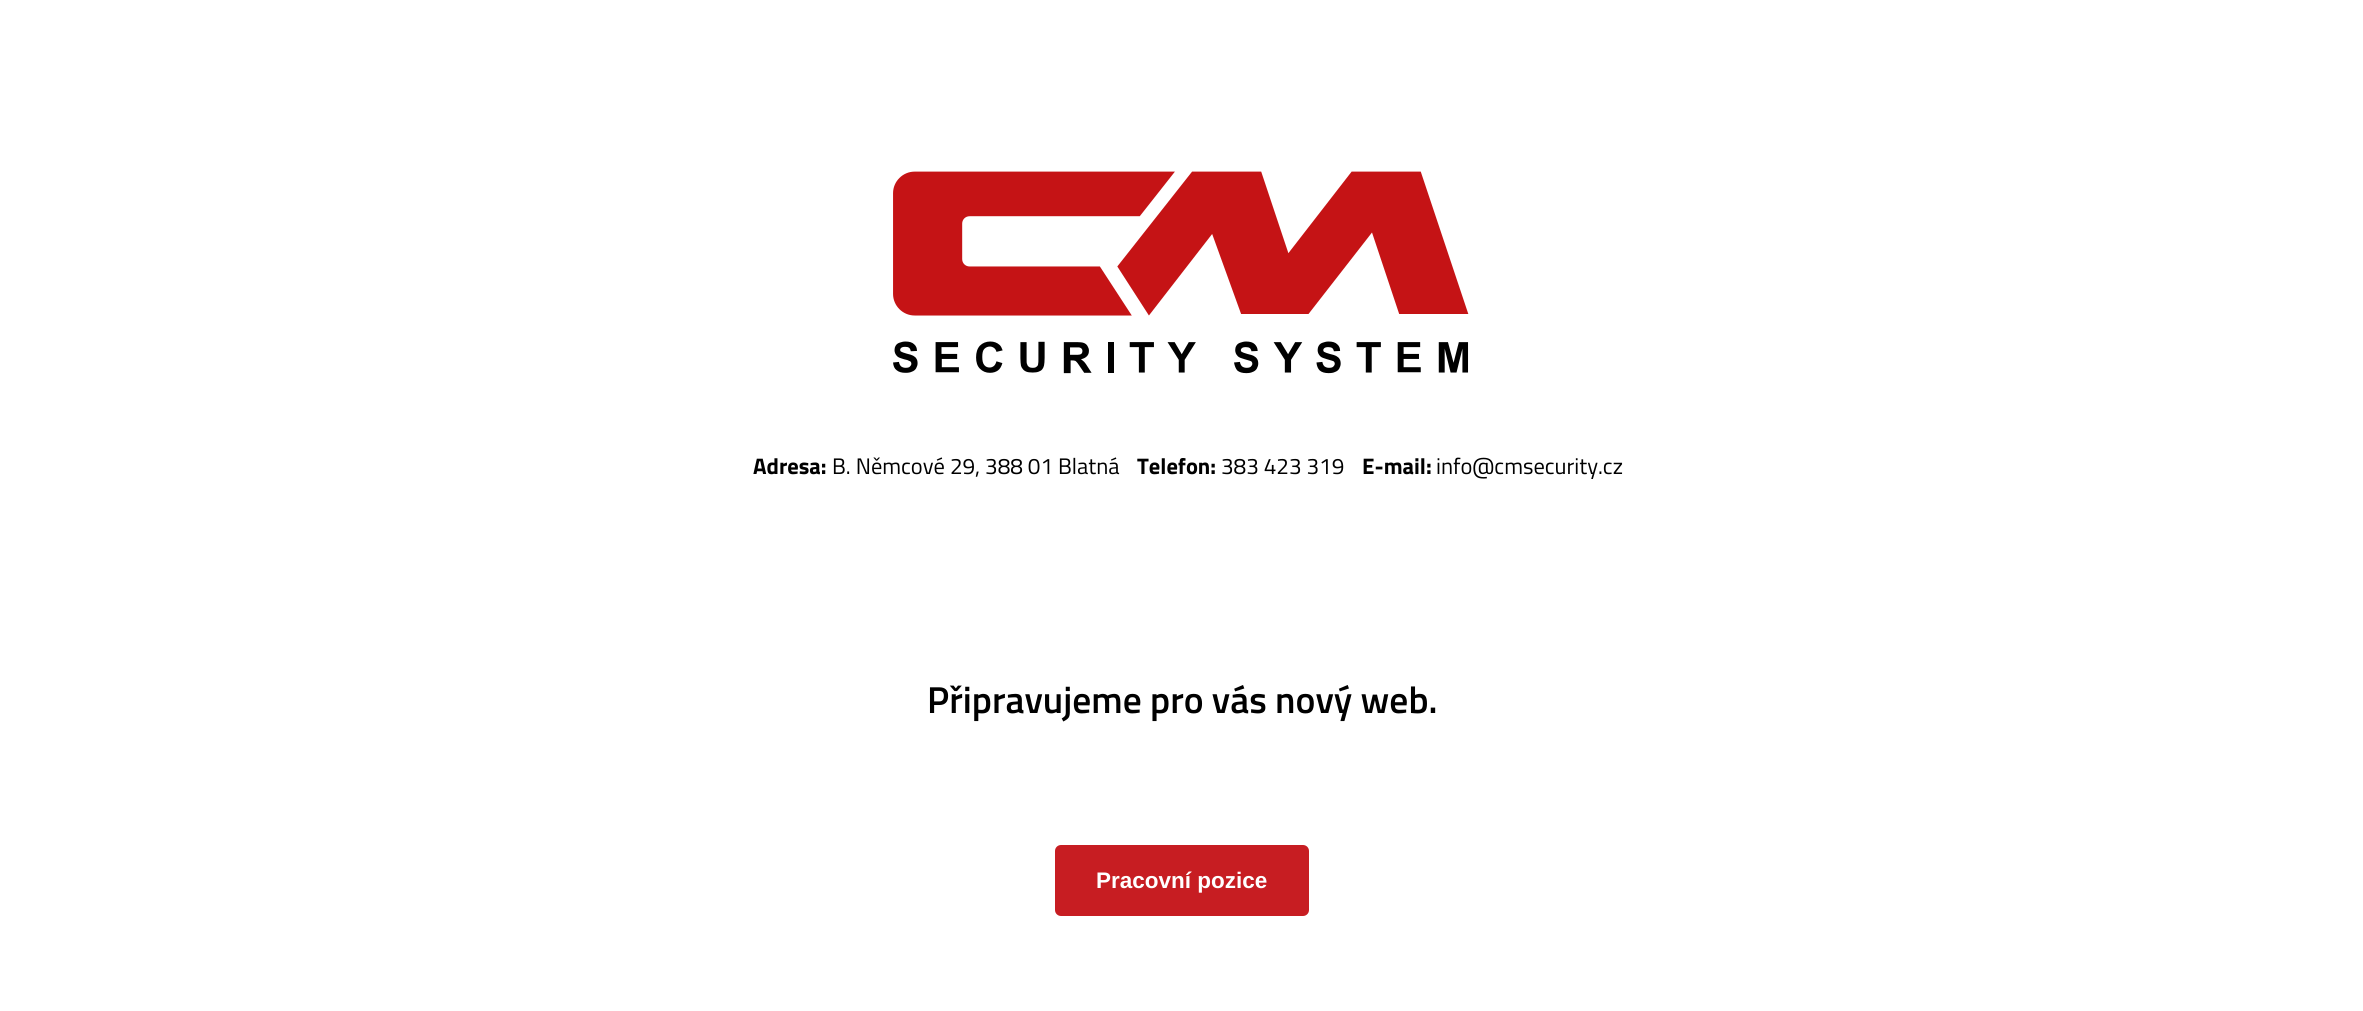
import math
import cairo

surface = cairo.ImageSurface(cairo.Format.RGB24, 2363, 1011)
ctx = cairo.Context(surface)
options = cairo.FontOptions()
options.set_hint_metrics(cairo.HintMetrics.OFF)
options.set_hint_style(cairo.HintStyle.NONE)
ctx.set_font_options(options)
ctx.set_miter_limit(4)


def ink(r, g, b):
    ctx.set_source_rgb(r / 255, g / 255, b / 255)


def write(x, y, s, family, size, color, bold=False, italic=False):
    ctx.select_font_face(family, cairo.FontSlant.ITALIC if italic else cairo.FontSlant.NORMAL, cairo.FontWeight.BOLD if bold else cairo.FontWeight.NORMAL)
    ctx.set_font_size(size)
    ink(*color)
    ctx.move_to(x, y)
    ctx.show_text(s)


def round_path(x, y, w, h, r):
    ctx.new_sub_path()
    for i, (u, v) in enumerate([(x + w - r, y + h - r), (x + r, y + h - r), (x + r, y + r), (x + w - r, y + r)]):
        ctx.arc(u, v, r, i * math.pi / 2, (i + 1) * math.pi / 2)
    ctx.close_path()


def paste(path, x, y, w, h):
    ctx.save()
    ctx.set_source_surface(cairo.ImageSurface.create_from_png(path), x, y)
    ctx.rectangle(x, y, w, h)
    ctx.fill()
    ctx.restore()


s1 = dict(family="Titillium Web", size=22.5, color=(0, 0, 0), bold=True)
s2 = dict(family="Titillium Web", size=22.5, color=(0, 0, 0))
s3 = dict(family="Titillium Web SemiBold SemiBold", size=37.5, color=(0, 0, 0))
s4 = dict(family="Liberation Sans", size=22.5, color=(255, 255, 255), bold=True)

ink(255, 255, 255)
ctx.paint()
paste("pic1.png", 893, 171, 576, 203)
write(753, 474, "Adresa:", **s1)
write(832, 474, "B. Němcové 29, 388 01 Blatná", **s2)
write(1137, 474, "Telefon:", **s1)
write(1221, 474, "383 423 319", **s2)
write(1362, 474, "E-mail:", **s1)
write(1436, 474, "info@cmsecurity.cz", **s2)
write(927, 713, "Připravujeme pro vás nový web.", **s3)
ink(199, 29, 34)
round_path(1056.5, 846.5, 251, 68, 4.5)
ctx.fill_preserve()
ctx.set_line_width(3)
ctx.stroke()
write(1096, 888, "Pracovní pozice", **s4)
surface.write_to_png("screenshot.png")
